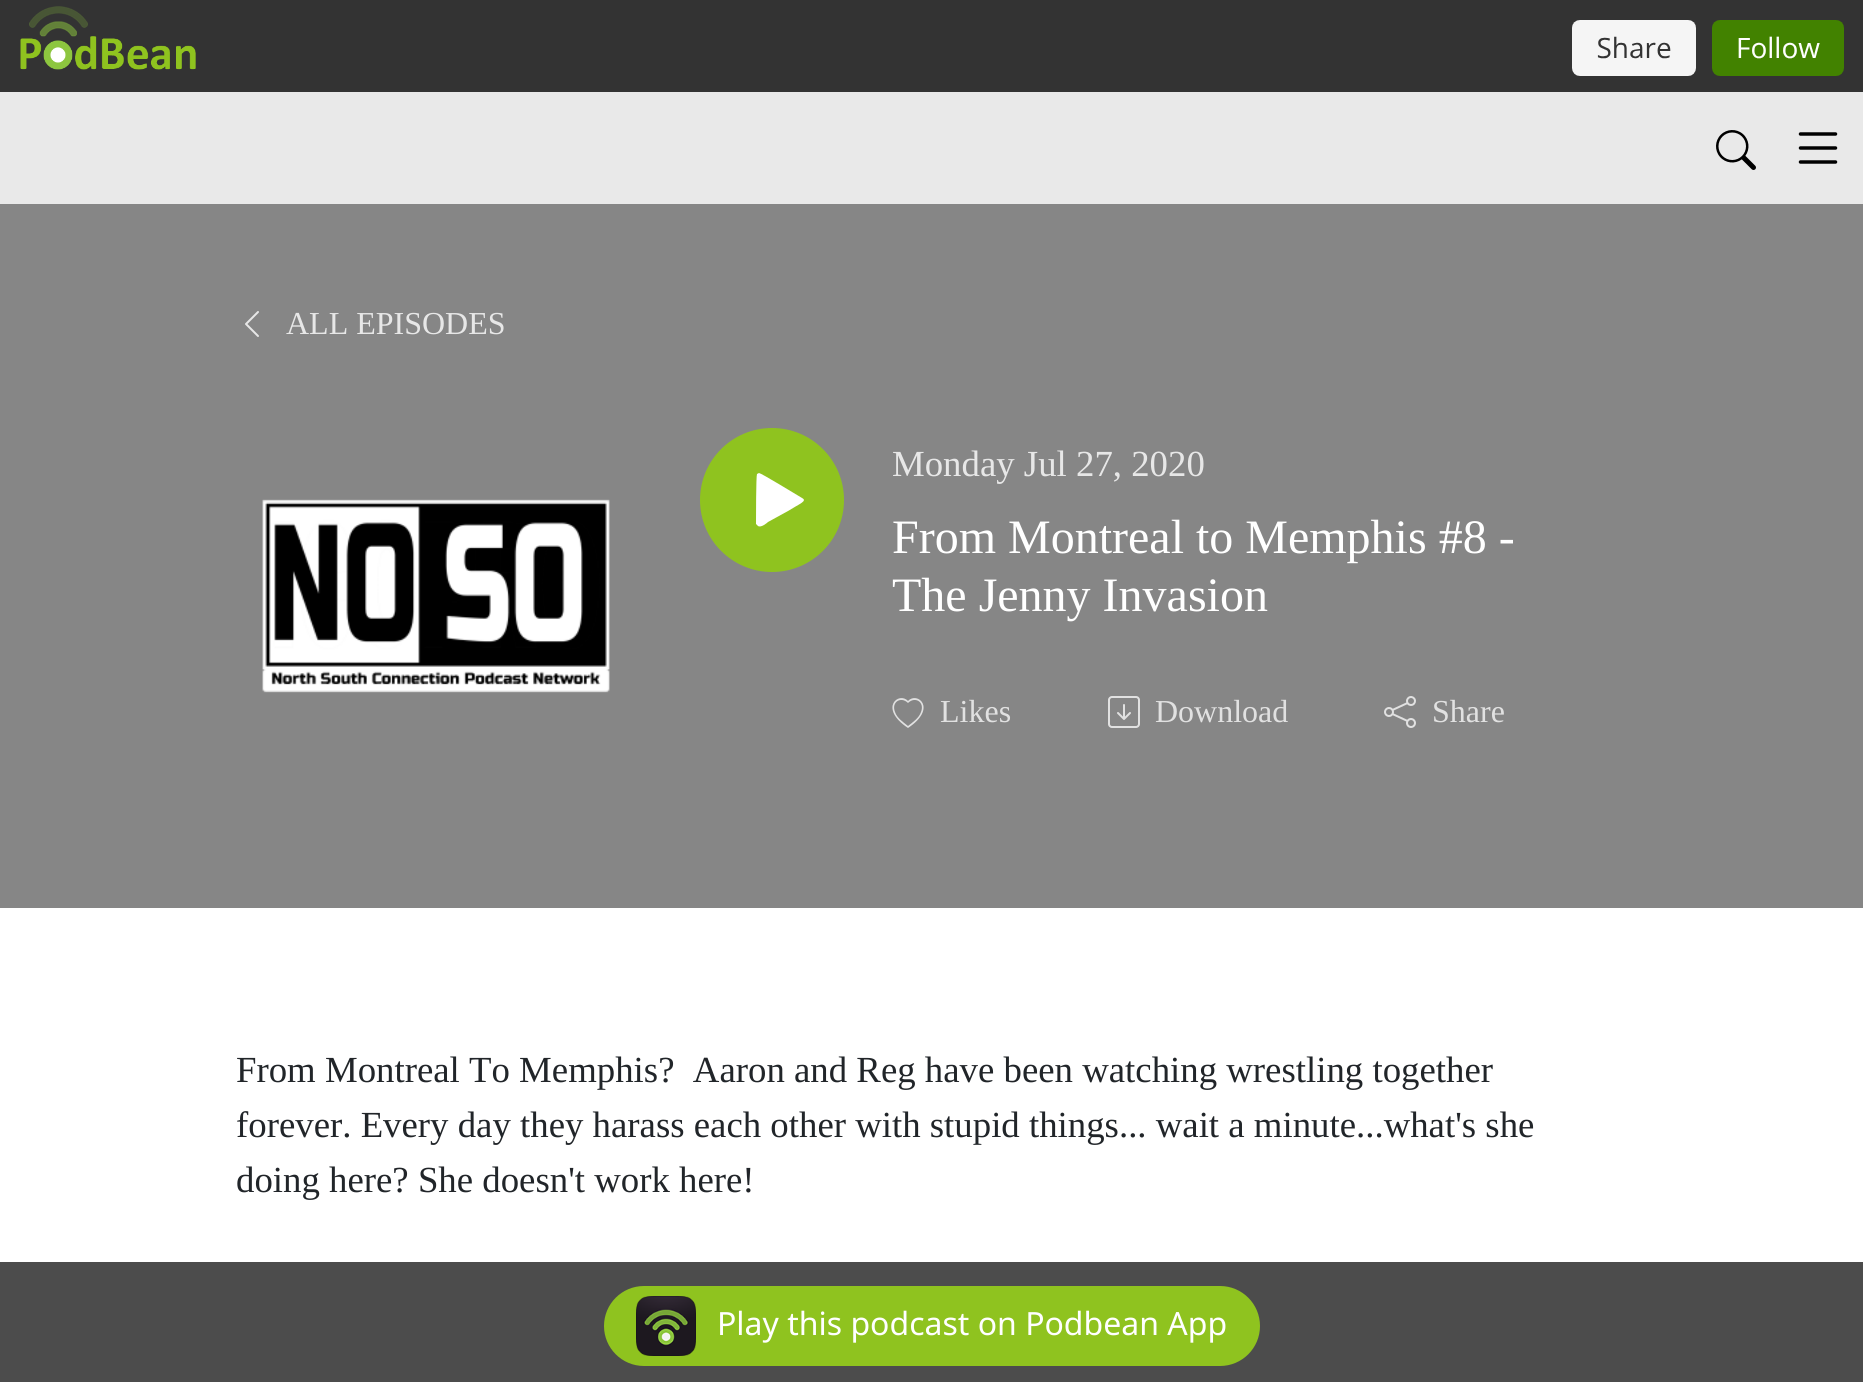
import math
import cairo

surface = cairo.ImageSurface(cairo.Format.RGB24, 1863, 1382)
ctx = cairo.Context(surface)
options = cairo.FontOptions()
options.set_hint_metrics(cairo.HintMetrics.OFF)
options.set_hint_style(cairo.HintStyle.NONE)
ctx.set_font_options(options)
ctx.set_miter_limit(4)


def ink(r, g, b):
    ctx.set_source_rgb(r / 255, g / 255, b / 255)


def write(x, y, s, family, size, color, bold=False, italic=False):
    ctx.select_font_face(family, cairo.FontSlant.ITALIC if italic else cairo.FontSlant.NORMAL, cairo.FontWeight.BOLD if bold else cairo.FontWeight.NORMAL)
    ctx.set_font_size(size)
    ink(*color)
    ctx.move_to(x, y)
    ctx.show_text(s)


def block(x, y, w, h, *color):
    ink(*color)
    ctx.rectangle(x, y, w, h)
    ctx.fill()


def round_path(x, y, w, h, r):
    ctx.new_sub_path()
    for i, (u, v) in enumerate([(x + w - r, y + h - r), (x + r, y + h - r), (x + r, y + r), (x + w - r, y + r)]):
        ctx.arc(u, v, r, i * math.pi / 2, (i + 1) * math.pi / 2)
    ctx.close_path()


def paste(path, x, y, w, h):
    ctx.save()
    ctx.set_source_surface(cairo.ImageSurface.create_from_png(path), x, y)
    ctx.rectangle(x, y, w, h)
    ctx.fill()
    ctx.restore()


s1 = dict(family="Liberation Serif", size=32, color=(231, 231, 231))
s2 = dict(family="Liberation Serif", size=36.8, color=(231, 231, 231))
s3 = dict(family="Liberation Serif", size=48, color=(255, 255, 255))
s4 = dict(family="Liberation Serif", size=32, color=(225, 225, 225))
s5 = dict(family="Liberation Serif", size=36.8, color=(33, 37, 41))
s6 = dict(family="Noto Sans", size=32, color=(255, 255, 255))

ink(255, 255, 255)
ctx.paint()
block(0, 0, 1863, 92, 51, 51, 51)
paste("pic1.png", 20, 6, 1824, 70)
block(0, 92, 1863, 112, 233, 233, 233)
paste("pic2.png", 1716, 130, 40, 40)
paste("pic3.png", 1798, 132, 40, 32)
block(0, 204, 1863, 704, 134, 134, 134)
paste("pic4.png", 245, 311, 14, 26)
write(286, 334, "ALL EPISODES", **s1)
paste("pic5.png", 262, 499, 348, 194)
ink(143, 195, 31)
ctx.arc(772, 500, 72, 0, 2 * math.pi)
ctx.fill()
ink(255, 255, 255)
ctx.new_path()
ctx.move_to(802, 498)
ctx.curve_to(797, 495, 761, 473, 759, 473)
ctx.line_to(757, 474)
ctx.curve_to(756, 476, 756, 520, 756, 524)
ctx.line_to(758, 526)
ctx.curve_to(761, 528, 767, 523, 768, 522)
ctx.line_to(788, 511)
ctx.curve_to(799, 504, 808, 501, 802, 498)
ctx.close_path()
ctx.fill()
write(892, 476, "Monday Jul 27, 2020", **s2)
write(892, 553, "From Montreal to Memphis #8 -", **s3)
write(892, 611, "The Jenny Invasion", **s3)
ink(225, 225, 225)
ctx.new_path()
ctx.move_to(908, 703)
ctx.curve_to(901, 696, 891, 702, 895, 712)
ctx.curve_to(897, 718, 903, 722, 908, 726)
ctx.curve_to(913, 722, 919, 718, 921, 712)
ctx.curve_to(925, 702, 915, 696, 908, 703)
ctx.close_path()
ctx.move_to(908, 728)
ctx.curve_to(878, 708, 899, 691, 908, 701)
ctx.curve_to(917, 691, 938, 708, 908, 728)
ctx.close_path()
ctx.fill()
write(940, 722, "Likes", **s4)
paste("pic6.png", 1108, 696, 32, 32)
write(1155, 722, "Download", **s4)
paste("pic7.png", 1384, 696, 32, 32)
write(1432, 722, "Share", **s4)
write(236, 1082, "From Montreal To Memphis?  Aaron and Reg have been watching wrestling together", **s5)
write(236, 1137, "forever. Every day they harass each other with stupid things... wait a minute...what's she", **s5)
write(236, 1192, "doing here? She doesn't work here!", **s5)
ctx.set_source_rgba(0, 0, 0, 0.7)
ctx.rectangle(0, 1262, 1863, 120)
ctx.fill()
ink(143, 195, 31)
round_path(604, 1286, 656, 80, 40)
ctx.fill()
paste("pic8.png", 636, 1296, 60, 60)
write(717, 1335, "Play this podcast on Podbean App", **s6)
surface.write_to_png("screenshot.png")
